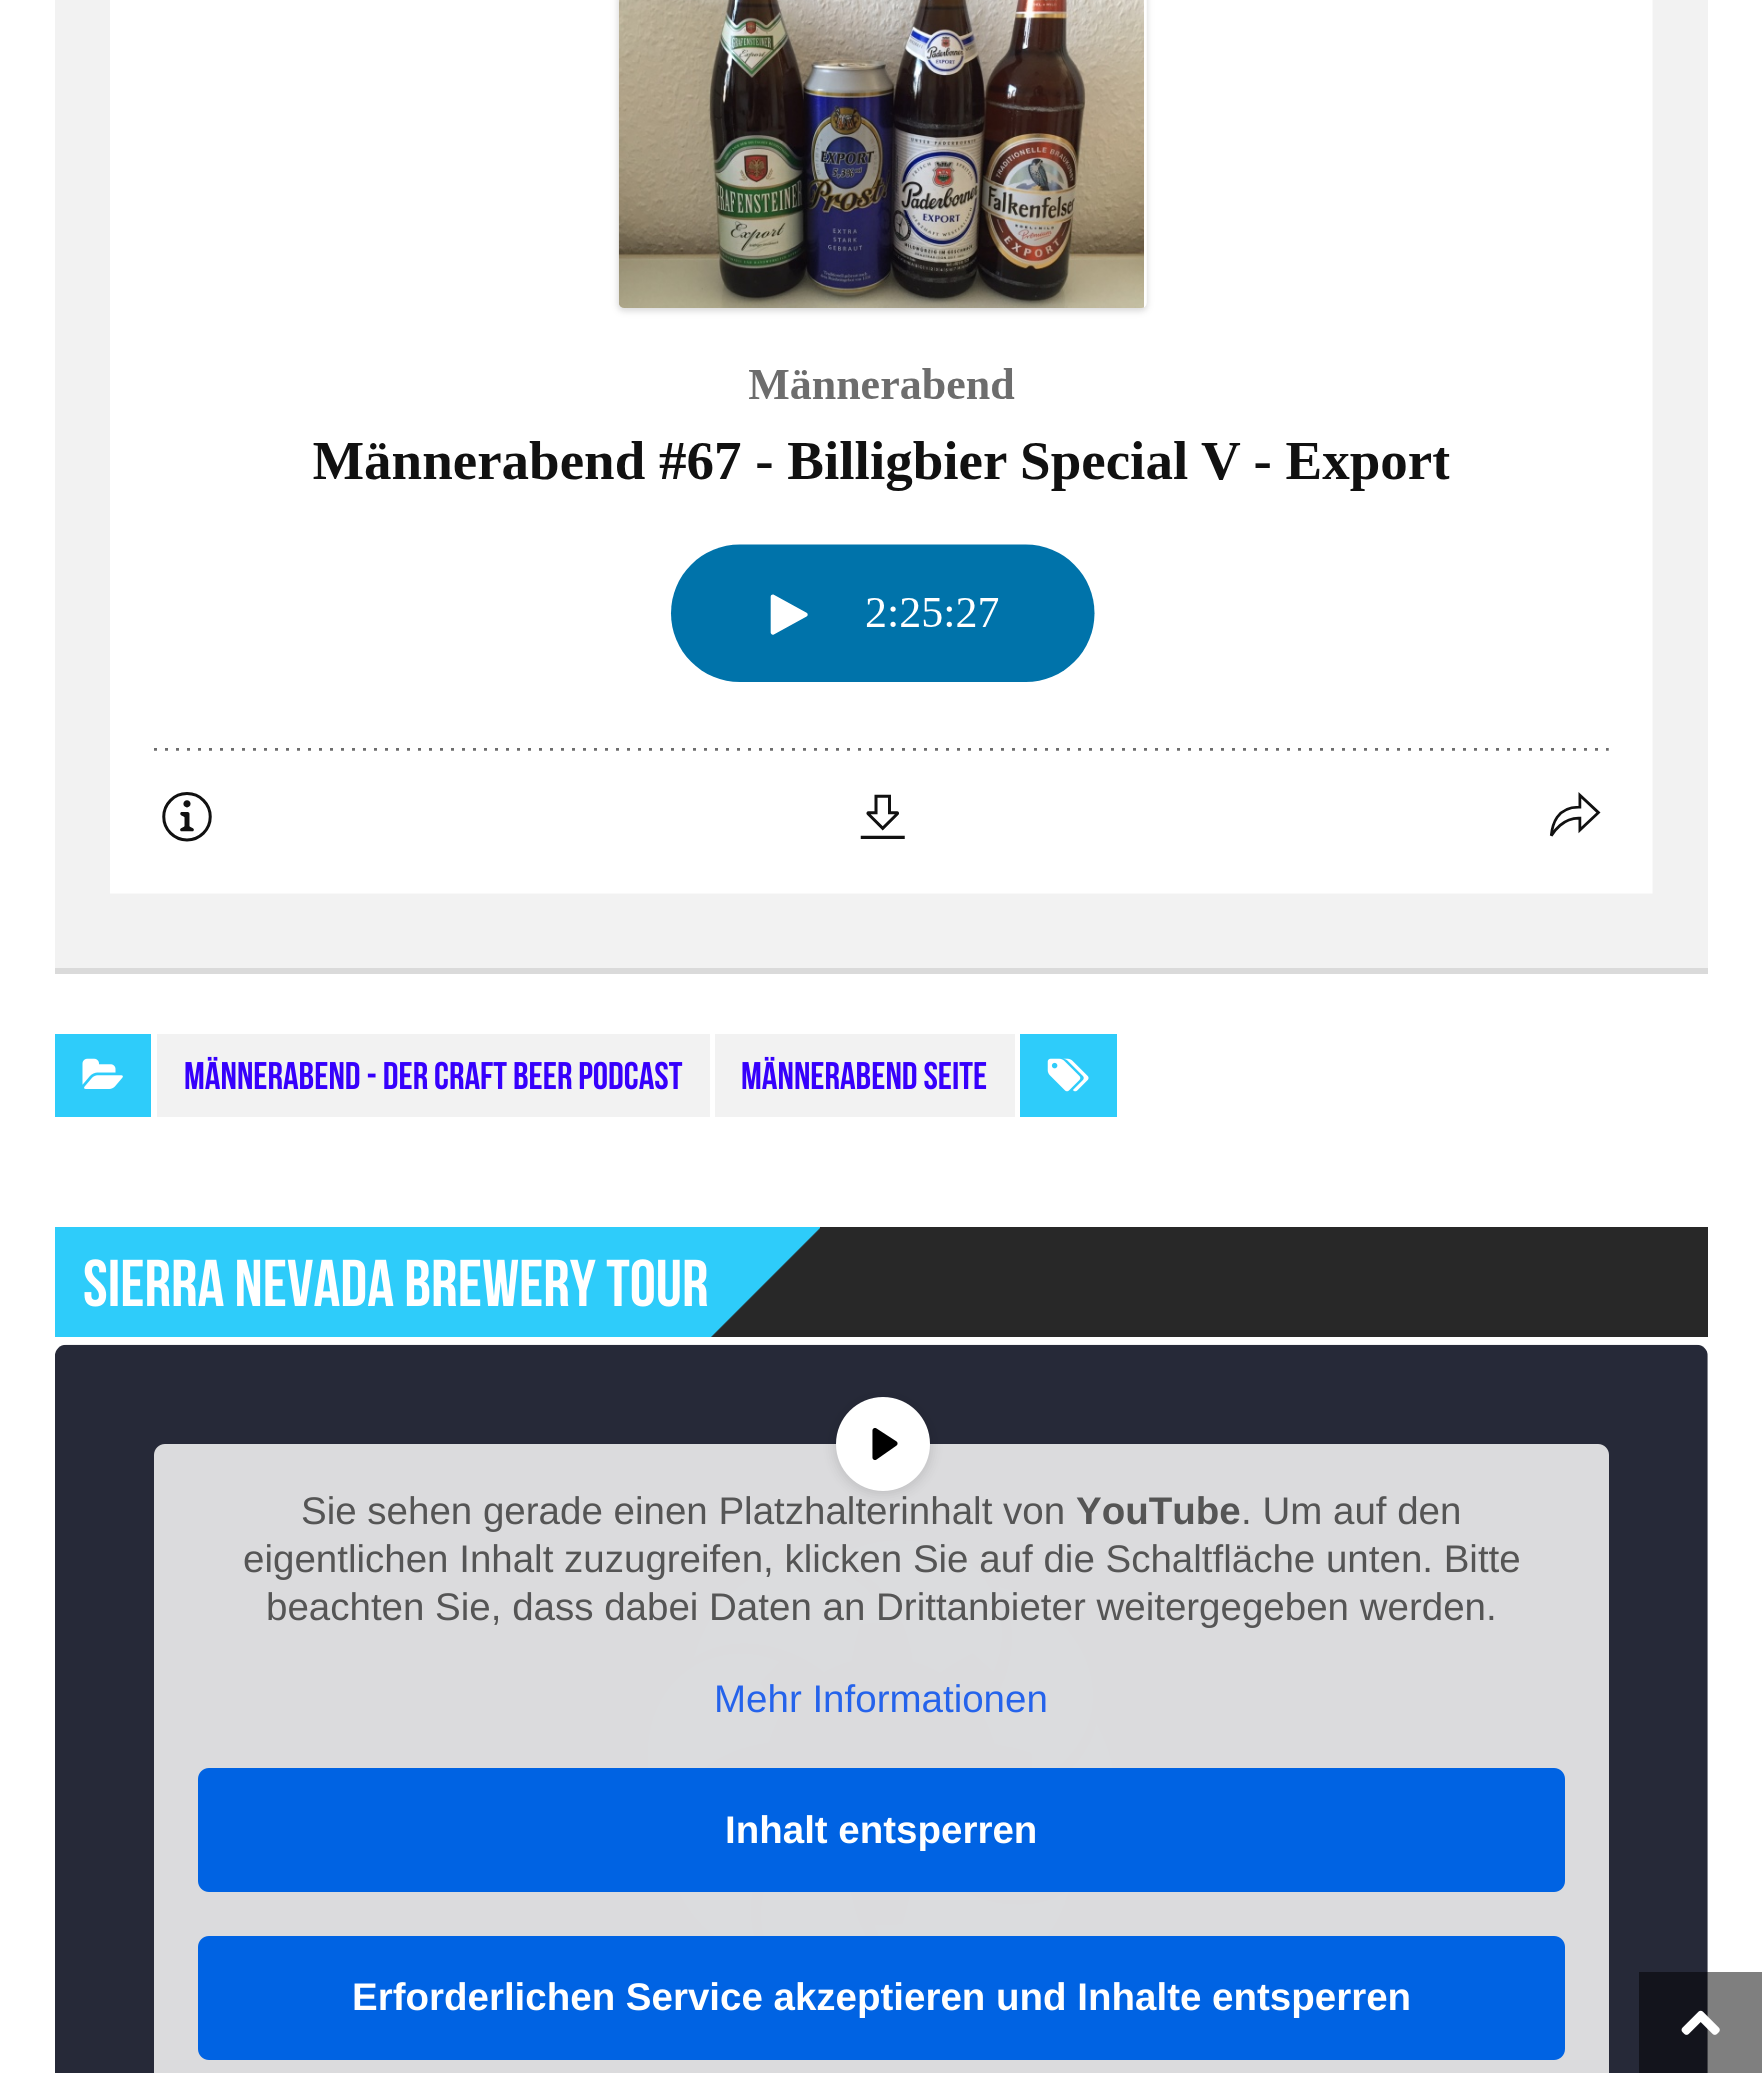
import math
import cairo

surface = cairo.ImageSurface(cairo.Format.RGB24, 1762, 2073)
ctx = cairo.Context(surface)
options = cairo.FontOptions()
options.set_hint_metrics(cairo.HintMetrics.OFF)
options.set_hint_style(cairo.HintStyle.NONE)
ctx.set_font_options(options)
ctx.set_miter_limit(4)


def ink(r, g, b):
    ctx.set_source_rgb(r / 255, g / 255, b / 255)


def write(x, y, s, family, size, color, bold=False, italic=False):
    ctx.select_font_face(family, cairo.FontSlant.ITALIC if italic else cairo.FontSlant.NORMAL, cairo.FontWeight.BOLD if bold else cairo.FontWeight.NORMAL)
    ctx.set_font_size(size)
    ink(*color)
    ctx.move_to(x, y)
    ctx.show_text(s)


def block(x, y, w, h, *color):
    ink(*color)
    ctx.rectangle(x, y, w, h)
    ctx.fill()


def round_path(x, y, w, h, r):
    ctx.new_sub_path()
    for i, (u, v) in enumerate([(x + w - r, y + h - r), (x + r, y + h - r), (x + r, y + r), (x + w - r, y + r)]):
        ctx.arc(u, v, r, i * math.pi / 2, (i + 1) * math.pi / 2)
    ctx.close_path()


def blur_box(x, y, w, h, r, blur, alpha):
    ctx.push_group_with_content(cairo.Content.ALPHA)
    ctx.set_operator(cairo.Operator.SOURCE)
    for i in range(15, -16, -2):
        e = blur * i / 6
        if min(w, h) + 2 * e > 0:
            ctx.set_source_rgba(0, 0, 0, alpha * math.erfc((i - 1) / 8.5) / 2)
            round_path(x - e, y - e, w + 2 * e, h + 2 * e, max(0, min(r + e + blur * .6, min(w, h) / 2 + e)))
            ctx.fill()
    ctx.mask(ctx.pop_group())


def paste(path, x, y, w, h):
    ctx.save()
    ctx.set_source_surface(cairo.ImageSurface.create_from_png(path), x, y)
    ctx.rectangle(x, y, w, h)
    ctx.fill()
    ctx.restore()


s1 = dict(family="Bebas Neue", size=38.5, color=(54, 0, 252))
s2 = dict(family="Bebas Neue", size=66, color=(255, 255, 255))
s3 = dict(family="Liberation Sans", size=38.5, color=(85, 85, 85))
s4 = dict(family="Liberation Sans", size=38.5, color=(85, 85, 85), bold=True)
s5 = dict(family="Liberation Sans", size=38.5, color=(37, 99, 235))
s6 = dict(family="Liberation Sans", size=38.5, color=(255, 255, 255), bold=True)

ink(255, 255, 255)
ctx.paint()
block(55, 0, 1653, 968, 242, 242, 242)
block(55, 968, 1653, 6, 218, 218, 218)
paste("pic1.png", 110, 0, 1543, 894)
block(55, 1034, 96, 83, 46, 204, 250)
paste("pic2.png", 82, 1058, 41, 31)
block(157, 1034, 553, 83, 242, 242, 242)
write(184, 1089, "MÄNNERABEND - Der Craft Beer Podcast", **s1)
block(715, 1034, 300, 83, 242, 242, 242)
write(741, 1089, "Männerabend Seite", **s1)
block(1020, 1034, 97, 83, 46, 204, 250)
paste("pic3.png", 1047, 1058, 42, 34)
block(820, 1227, 888, 110, 40, 40, 40)
block(55, 1227, 655, 110, 46, 204, 250)
write(83, 1306, "Sierra Nevada Brewery Tour", **s2)
gradient = cairo.LinearGradient(710, 1227, 820, 1337)
gradient.add_color_stop_rgba(0, 0.18, 0.8, 0.98, 1)
gradient.add_color_stop_rgba(0.5, 0.18, 0.8, 0.98, 1)
gradient.add_color_stop_rgba(0.51, 0.157, 0.157, 0.157, 1)
gradient.add_color_stop_rgba(1, 0.157, 0.157, 0.157, 1)
ctx.set_source(gradient)
ctx.rectangle(710, 1227, 110, 110)
ctx.fill()
ink(250, 250, 250)
round_path(55, 1345, 1653, 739, 11)
ctx.fill()
paste("pic4.png", 55, 1344, 1653, 729)
ctx.set_source_rgba(0.98, 0.98, 0.98, 0.85)
round_path(154, 1444, 1455, 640, 11)
ctx.fill()
ink(0, 0, 0)
blur_box(836, 1400, 94, 93, 46.5, 7, 0.15)
ink(255, 255, 255)
ctx.arc(883, 1444, 47, 0, 2 * math.pi)
ctx.fill()
ink(0, 0, 0)
ctx.new_path()
ctx.move_to(875, 1457.5)
ctx.line_to(875, 1430.5)
ctx.line_to(895, 1443.5)
ctx.close_path()
ctx.fill_preserve()
ctx.set_line_width(5.1)
ctx.set_line_cap(cairo.LineCap.ROUND)
ctx.set_line_join(cairo.LineJoin.ROUND)
ctx.stroke()
write(301, 1524, "Sie sehen gerade einen Platzhalterinhalt von", **s3)
write(1076, 1524, "YouTube", **s4)
write(1241, 1524, ". Um auf den", **s3)
write(243, 1572, "eigentlichen Inhalt zuzugreifen, klicken Sie auf die Schaltfläche unten. Bitte", **s3)
write(266, 1620, "beachten Sie, dass dabei Daten an Drittanbieter weitergegeben werden.", **s3)
write(714, 1712, "Mehr Informationen", **s5)
ink(0, 99, 227)
round_path(198, 1768, 1367, 124, 11)
ctx.fill()
write(725, 1843, "Inhalt entsperren", **s6)
ink(0, 99, 227)
round_path(198, 1936, 1367, 124, 11)
ctx.fill()
write(352, 2010, "Erforderlichen Service akzeptieren und Inhalte entsperren", **s6)
ctx.set_source_rgba(0, 0, 0, 0.5)
ctx.rectangle(1639, 1972, 123, 101)
ctx.fill()
paste("pic5.png", 1681, 2010, 39, 25)
surface.write_to_png("screenshot.png")
